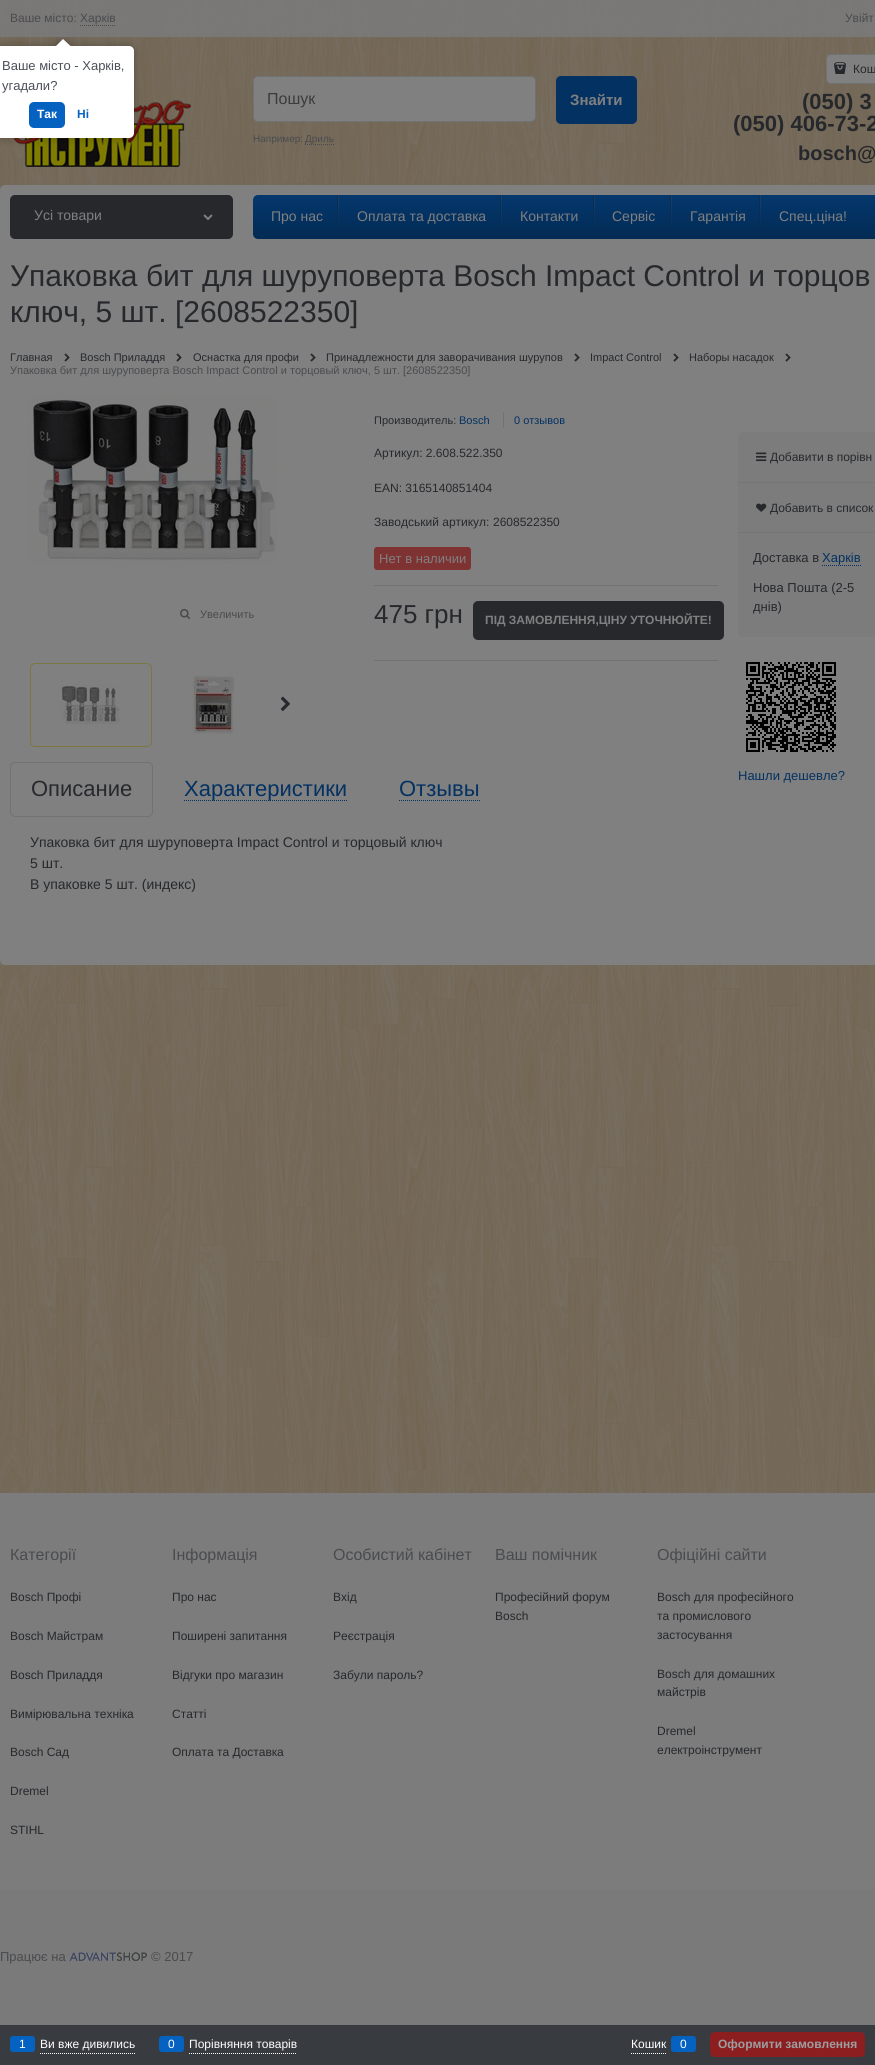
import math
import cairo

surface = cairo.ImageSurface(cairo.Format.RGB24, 875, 2065)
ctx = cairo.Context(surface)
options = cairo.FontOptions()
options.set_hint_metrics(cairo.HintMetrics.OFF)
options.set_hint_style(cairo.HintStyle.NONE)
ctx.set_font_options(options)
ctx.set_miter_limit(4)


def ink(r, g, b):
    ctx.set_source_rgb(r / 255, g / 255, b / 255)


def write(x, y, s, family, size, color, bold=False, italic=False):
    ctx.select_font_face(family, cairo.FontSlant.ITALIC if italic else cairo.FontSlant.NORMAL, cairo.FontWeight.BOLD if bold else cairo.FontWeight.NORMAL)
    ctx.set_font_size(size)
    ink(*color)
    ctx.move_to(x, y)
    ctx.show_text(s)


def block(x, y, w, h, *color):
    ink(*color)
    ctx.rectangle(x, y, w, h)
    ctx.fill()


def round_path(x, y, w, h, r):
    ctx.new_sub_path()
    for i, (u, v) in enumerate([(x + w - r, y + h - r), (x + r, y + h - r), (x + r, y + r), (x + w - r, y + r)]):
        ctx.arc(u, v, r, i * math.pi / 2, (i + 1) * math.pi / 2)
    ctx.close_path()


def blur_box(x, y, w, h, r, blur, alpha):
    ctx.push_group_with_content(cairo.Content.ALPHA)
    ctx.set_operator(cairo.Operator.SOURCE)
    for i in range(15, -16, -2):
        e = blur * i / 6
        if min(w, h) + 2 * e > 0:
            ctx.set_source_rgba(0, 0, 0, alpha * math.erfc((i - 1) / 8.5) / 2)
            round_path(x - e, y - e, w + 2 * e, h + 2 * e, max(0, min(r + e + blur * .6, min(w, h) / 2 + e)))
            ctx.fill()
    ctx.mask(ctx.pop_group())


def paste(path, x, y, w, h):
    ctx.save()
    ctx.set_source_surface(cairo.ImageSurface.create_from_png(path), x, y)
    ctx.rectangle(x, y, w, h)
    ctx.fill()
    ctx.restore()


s1 = dict(family="Liberation Sans", size=12, color=(74, 75, 78))
s2 = dict(family="Liberation Sans", size=16, color=(59, 59, 59))
s3 = dict(family="Liberation Sans", size=10, color=(74, 75, 78))
s4 = dict(family="Liberation Sans", size=15, color=(128, 128, 128), bold=True)
s5 = dict(family="Liberation Sans", size=12, color=(38, 40, 44))
s6 = dict(family="Liberation Sans", size=22, color=(38, 40, 44), bold=True)
s7 = dict(family="Liberation Sans", size=20, color=(38, 40, 44), bold=True)
s8 = dict(family="Liberation Sans", size=14, color=(128, 128, 128))
s9 = dict(family="Liberation Sans", size=30, color=(38, 40, 44))
s10 = dict(family="Liberation Sans", size=11, color=(38, 40, 44))
s11 = dict(family="Liberation Sans", size=11, color=(74, 75, 78))
s12 = dict(family="Liberation Sans", size=11, color=(3, 49, 97))
s13 = dict(family="Liberation Sans", size=13, color=(128, 128, 128))
s14 = dict(family="Liberation Sans", size=26, color=(38, 40, 44))
s15 = dict(family="Liberation Sans", size=12, color=(128, 128, 128), bold=True)
s16 = dict(family="Liberation Sans", size=22, color=(38, 40, 44))
s17 = dict(family="Liberation Sans", size=22, color=(3, 49, 97))
s18 = dict(family="Liberation Sans", size=14, color=(38, 40, 44))
s19 = dict(family="Liberation Sans", size=13, color=(38, 40, 44))
s20 = dict(family="Liberation Sans", size=13, color=(3, 49, 97))
s21 = dict(family="Liberation Sans", size=16, color=(74, 75, 78))
s22 = dict(family="Liberation Sans", size=13, color=(74, 75, 78))
s23 = dict(family="Liberation Sans", size=12, color=(255, 255, 255))
s24 = dict(family="Liberation Sans", size=12, color=(156, 158, 160), bold=True)
s25 = dict(family="Liberation Sans", size=13, color=(75, 79, 88))
s26 = dict(family="Liberation Sans", size=12, color=(255, 255, 255), bold=True)
s27 = dict(family="Liberation Sans", size=12, color=(6, 98, 193), bold=True)

ink(255, 255, 255)
ctx.paint()
paste("pic1.png", 0, 0, 875, 1493)
ctx.set_source_rgba(0.478, 0.478, 0.478, 0.9)
ctx.rectangle(0, 0, 875, 37)
ctx.fill()
write(10, 22, "Ваше місто: Харків", **s1)
ctx.new_path()
ctx.move_to(80, 25.5)
ctx.line_to(116, 25.5)
ctx.set_line_width(1)
ctx.set_dash([1, 1])
ctx.stroke()
write(845, 22, "Увійт", **s1)
paste("pic2.png", 13, 100, 178, 67)
ink(128, 128, 128)
round_path(253.5, 76.5, 282, 45, 4.5)
ctx.fill_preserve()
ink(113, 114, 114)
ctx.set_dash([])
ctx.stroke()
write(267, 104, "Пошук", **s2)
write(253, 142, "Например:", **s3)
ctx.new_path()
ctx.move_to(305, 144.5)
ctx.line_to(334, 144.5)
ctx.set_dash([1, 1])
ctx.stroke()
write(305, 142, "Дриль", **s3)
ink(3, 49, 97)
round_path(556, 76, 81, 48, 5)
ctx.fill()
write(570, 105, "Знайти", **s4)
round_path(826.5, 54.5, 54, 29, 4.5)
ctx.fill_preserve()
ink(113, 114, 114)
ctx.set_dash([])
ctx.stroke()
paste("pic3.png", 834, 62, 12, 12)
write(853, 73, "Кош", **s5)
write(802, 109, "(050) 3", **s6)
write(733, 131, "(050) 406-73-2", **s6)
write(798, 160, "bosch@", **s7)
ink(128, 128, 128)
round_path(0, 185, 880, 780, 5)
ctx.fill()
ink(38, 40, 44)
round_path(10, 195, 223, 44, 5)
ctx.fill()
write(34, 220, "Усі товари", **s8)
paste("pic4.png", 203, 214, 10, 7)
gradient = cairo.LinearGradient(607, 195, 607, 239)
gradient.add_color_stop_rgba(0, 0.016, 0.22, 0.427, 1)
gradient.add_color_stop_rgba(0.5, 0.012, 0.192, 0.38, 1)
gradient.add_color_stop_rgba(1, 0.012, 0.169, 0.329, 1)
ctx.set_source(gradient)
round_path(253, 195, 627, 44, 5)
ctx.fill()
write(271, 221, "Про нас", **s8)
gradient = cairo.LinearGradient(339, 195, 339, 239)
gradient.add_color_stop_rgba(0, 0.502, 0.502, 0.502, 0.14)
gradient.add_color_stop_rgba(0.72, 0.502, 0.502, 0.502, 0.02)
gradient.add_color_stop_rgba(1, 0.502, 0.502, 0.502, 0)
ctx.set_source(gradient)
ctx.rectangle(338, 195, 1, 31)
ctx.fill()
gradient = cairo.LinearGradient(338, 195, 338, 239)
gradient.add_color_stop_rgba(0, 0.114, 0.114, 0.114, 0.39)
gradient.add_color_stop_rgba(0.17, 0.114, 0.114, 0.114, 0.33)
gradient.add_color_stop_rgba(0.61, 0.114, 0.114, 0.114, 0.12)
gradient.add_color_stop_rgba(0.96, 0.114, 0.114, 0.114, 0.01)
gradient.add_color_stop_rgba(0.98, 0.502, 0.502, 0.502, 0.01)
gradient.add_color_stop_rgba(1, 0.502, 0.502, 0.502, 0)
ctx.set_source(gradient)
ctx.rectangle(337, 195, 1, 44)
ctx.fill()
write(357, 221, "Оплата та доставка", **s8)
gradient = cairo.LinearGradient(502, 195, 502, 239)
gradient.add_color_stop_rgba(0, 0.502, 0.502, 0.502, 0.14)
gradient.add_color_stop_rgba(0.72, 0.502, 0.502, 0.502, 0.02)
gradient.add_color_stop_rgba(1, 0.502, 0.502, 0.502, 0)
ctx.set_source(gradient)
ctx.rectangle(501, 195, 1, 31)
ctx.fill()
gradient = cairo.LinearGradient(501, 195, 501, 239)
gradient.add_color_stop_rgba(0, 0.114, 0.114, 0.114, 0.39)
gradient.add_color_stop_rgba(0.17, 0.114, 0.114, 0.114, 0.33)
gradient.add_color_stop_rgba(0.61, 0.114, 0.114, 0.114, 0.12)
gradient.add_color_stop_rgba(0.96, 0.114, 0.114, 0.114, 0.01)
gradient.add_color_stop_rgba(0.98, 0.502, 0.502, 0.502, 0.01)
gradient.add_color_stop_rgba(1, 0.502, 0.502, 0.502, 0)
ctx.set_source(gradient)
ctx.rectangle(500, 195, 1, 44)
ctx.fill()
write(520, 221, "Контакти", **s8)
gradient = cairo.LinearGradient(595, 195, 595, 239)
gradient.add_color_stop_rgba(0, 0.502, 0.502, 0.502, 0.14)
gradient.add_color_stop_rgba(0.72, 0.502, 0.502, 0.502, 0.02)
gradient.add_color_stop_rgba(1, 0.502, 0.502, 0.502, 0)
ctx.set_source(gradient)
ctx.rectangle(594, 195, 1, 31)
ctx.fill()
gradient = cairo.LinearGradient(594, 195, 594, 239)
gradient.add_color_stop_rgba(0, 0.114, 0.114, 0.114, 0.39)
gradient.add_color_stop_rgba(0.17, 0.114, 0.114, 0.114, 0.33)
gradient.add_color_stop_rgba(0.61, 0.114, 0.114, 0.114, 0.12)
gradient.add_color_stop_rgba(0.96, 0.114, 0.114, 0.114, 0.01)
gradient.add_color_stop_rgba(0.98, 0.502, 0.502, 0.502, 0.01)
gradient.add_color_stop_rgba(1, 0.502, 0.502, 0.502, 0)
ctx.set_source(gradient)
ctx.rectangle(593, 195, 1, 44)
ctx.fill()
write(612, 221, "Сервіс", **s8)
gradient = cairo.LinearGradient(672, 195, 672, 239)
gradient.add_color_stop_rgba(0, 0.502, 0.502, 0.502, 0.14)
gradient.add_color_stop_rgba(0.72, 0.502, 0.502, 0.502, 0.02)
gradient.add_color_stop_rgba(1, 0.502, 0.502, 0.502, 0)
ctx.set_source(gradient)
ctx.rectangle(671, 195, 1, 31)
ctx.fill()
gradient = cairo.LinearGradient(671, 195, 671, 239)
gradient.add_color_stop_rgba(0, 0.114, 0.114, 0.114, 0.39)
gradient.add_color_stop_rgba(0.17, 0.114, 0.114, 0.114, 0.33)
gradient.add_color_stop_rgba(0.61, 0.114, 0.114, 0.114, 0.12)
gradient.add_color_stop_rgba(0.96, 0.114, 0.114, 0.114, 0.01)
gradient.add_color_stop_rgba(0.98, 0.502, 0.502, 0.502, 0.01)
gradient.add_color_stop_rgba(1, 0.502, 0.502, 0.502, 0)
ctx.set_source(gradient)
ctx.rectangle(670, 195, 1, 44)
ctx.fill()
write(690, 221, "Гарантія", **s8)
gradient = cairo.LinearGradient(761, 195, 761, 239)
gradient.add_color_stop_rgba(0, 0.502, 0.502, 0.502, 0.14)
gradient.add_color_stop_rgba(0.72, 0.502, 0.502, 0.502, 0.02)
gradient.add_color_stop_rgba(1, 0.502, 0.502, 0.502, 0)
ctx.set_source(gradient)
ctx.rectangle(760, 195, 1, 31)
ctx.fill()
gradient = cairo.LinearGradient(760, 195, 760, 239)
gradient.add_color_stop_rgba(0, 0.114, 0.114, 0.114, 0.39)
gradient.add_color_stop_rgba(0.17, 0.114, 0.114, 0.114, 0.33)
gradient.add_color_stop_rgba(0.61, 0.114, 0.114, 0.114, 0.12)
gradient.add_color_stop_rgba(0.96, 0.114, 0.114, 0.114, 0.01)
gradient.add_color_stop_rgba(0.98, 0.502, 0.502, 0.502, 0.01)
gradient.add_color_stop_rgba(1, 0.502, 0.502, 0.502, 0)
ctx.set_source(gradient)
ctx.rectangle(759, 195, 1, 44)
ctx.fill()
write(779, 221, "Спец.ціна!", **s8)
write(10, 286, "Упаковка бит для шуруповерта Bosch Impact Control и торцов", **s9)
write(10, 322, "ключ, 5 шт. [2608522350]", **s9)
write(10, 361, "Главная", **s10)
paste("pic5.png", 64, 353, 6, 9)
write(80, 361, "Bosch Приладдя", **s10)
paste("pic5.png", 176, 353, 6, 9)
write(193, 361, "Оснастка для профи", **s10)
paste("pic5.png", 310, 353, 6, 9)
write(326, 361, "Принадлежности для заворачивания шурупов", **s10)
paste("pic5.png", 574, 353, 6, 9)
write(590, 361, "Impact Control", **s10)
paste("pic5.png", 673, 353, 6, 9)
write(689, 361, "Наборы насадок", **s10)
paste("pic5.png", 785, 353, 6, 9)
write(10, 374, "Упаковка бит для шуруповерта Bosch Impact Control и торцовый ключ, 5 шт. [2608522350]", **s11)
paste("pic6.png", 29, 396, 248, 168)
paste("pic7.png", 180, 608, 11, 12)
write(200, 618, "Увеличить", **s11)
round_path(30.5, 663.5, 121, 83, 4.5)
ink(124, 118, 66)
ctx.stroke()
paste("pic8.png", 61, 685, 59, 40)
paste("pic9.png", 192, 675, 43, 60)
paste("pic10.png", 280, 696, 10, 15)
write(374, 424, "Производитель:", **s10)
write(459, 424, "Bosch", **s12)
block(503, 412, 1, 16, 113, 114, 114)
write(514, 424, "0 отзывов", **s12)
write(374, 457, "Артикул: 2.608.522.350", **s5)
write(374, 492, "EAN: 3165140851404", **s5)
write(374, 526, "Заводський артикул:", **s5)
write(493, 526, "2608522350", **s5)
ink(126, 50, 50)
round_path(374, 547, 97, 23, 3)
ctx.fill()
write(379, 563, "Нет в наличии", **s13)
block(374, 585, 344, 1, 113, 114, 114)
block(374, 660, 344, 1, 113, 114, 114)
write(374, 623, "475 грн", **s14)
round_path(473, 601, 251, 39, 5)
ctx.fill()
write(485, 624, "ПІД ЗАМОВЛЕННЯ,ЦІНУ УТОЧНЮЙТЕ!", **s15)
round_path(10.5, 762.5, 142, 54, 4.5)
ink(113, 114, 114)
ctx.stroke()
write(31, 796, "Описание", **s16)
ctx.new_path()
ctx.move_to(184, 800.5)
ctx.line_to(347, 800.5)
ink(3, 49, 97)
ctx.set_dash([1, 1])
ctx.stroke()
write(184, 796, "Характеристики", **s17)
ctx.new_path()
ctx.move_to(399, 800.5)
ctx.line_to(480, 800.5)
ctx.stroke()
write(399, 796, "Отзывы", **s17)
write(30, 847, "Упаковка бит для шуруповерта Impact Control и торцовый ключ", **s18)
write(30, 868, "5 шт.", **s18)
write(30, 889, "В упаковке 5 шт. (индекс)", **s18)
ink(124, 124, 124)
round_path(738, 432, 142, 205, 5)
ctx.fill()
block(738, 482, 137, 1, 117, 117, 117)
paste("pic11.png", 756, 452, 11, 10)
write(770, 461, "Добавити в порівн", **s5)
block(738, 532, 137, 1, 117, 117, 117)
paste("pic12.png", 756, 503, 11, 9)
write(770, 512, "Добавить в список", **s5)
write(753, 562, "Доставка в", **s19)
write(822, 562, "Харків", **s20)
ctx.new_path()
ctx.move_to(822, 565.5)
ctx.line_to(861, 565.5)
ctx.stroke()
write(753, 592, "Нова Пошта (2-5", **s19)
write(753, 611, "днів)", **s19)
paste("pic13.png", 746, 662, 90, 90)
write(738, 780, "Нашли дешевле?", **s20)
block(0, 1493, 875, 396, 124, 124, 124)
write(10, 1560, "Категорії", **s21)
write(10, 1601, "Bosch Профі", **s5)
write(10, 1640, "Bosch Майстрам", **s5)
write(10, 1679, "Bosch Приладдя", **s5)
write(10, 1718, "Вимірювальна техніка", **s5)
write(10, 1756, "Bosch Сад", **s5)
write(10, 1795, "Dremel", **s5)
write(10, 1834, "STIHL", **s5)
write(172, 1560, "Інформація", **s21)
write(172, 1601, "Про нас", **s5)
write(172, 1640, "Поширені запитання", **s5)
write(172, 1679, "Відгуки про магазин", **s5)
write(172, 1718, "Статті", **s5)
write(172, 1756, "Оплата та Доставка", **s5)
write(333, 1560, "Особистий кабінет", **s21)
write(333, 1601, "Вхід", **s5)
write(333, 1640, "Реєстрація", **s5)
write(333, 1679, "Забули пароль?", **s5)
write(495, 1560, "Ваш помічник", **s21)
write(495, 1601, "Професійний форум", **s5)
write(495, 1620, "Bosch", **s5)
write(657, 1560, "Офіційні сайти", **s21)
write(657, 1601, "Bosch для професійного", **s5)
write(657, 1620, "та промислового", **s5)
write(657, 1639, "застосування", **s5)
write(657, 1678, "Bosch для домашних", **s5)
write(657, 1696, "майстрів", **s5)
write(657, 1735, "Dremel", **s5)
write(657, 1754, "електроінструмент", **s5)
block(0, 1889, 875, 136, 122, 122, 122)
write(0, 1961, "Працює на", **s22)
paste("pic14.png", 69, 1952, 78, 9)
write(151, 1961, "© 2017", **s22)
block(0, 2025, 875, 40, 56, 60, 64)
ctx.new_path()
ctx.move_to(40, 2053.5)
ctx.line_to(135, 2053.5)
ink(255, 255, 255)
ctx.stroke()
ink(6, 98, 193)
round_path(10, 2036, 25, 16, 3)
ctx.fill()
write(19, 2048, "1", **s23)
write(40, 2048, "Ви вже дивились", **s23)
ctx.new_path()
ctx.move_to(189, 2053.5)
ctx.line_to(297, 2053.5)
ctx.stroke()
ink(6, 98, 193)
round_path(159, 2036, 25, 16, 3)
ctx.fill()
write(168, 2048, "0", **s23)
write(189, 2048, "Порівняння товарів", **s23)
ctx.new_path()
ctx.move_to(631, 2053.5)
ctx.line_to(666, 2053.5)
ctx.stroke()
write(631, 2048, "Кошик", **s23)
ink(6, 98, 193)
round_path(671, 2036, 25, 16, 3)
ctx.fill()
write(680, 2048, "0", **s23)
ink(141, 30, 32)
round_path(710, 2032, 155, 25, 5)
ctx.fill()
write(718, 2048, "Оформити замовлення", **s24)
ink(0, 0, 0)
blur_box(-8, 46, 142, 92, 5, 4.5, 0.25)
ink(255, 255, 255)
round_path(-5, 46, 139, 92, 5)
ctx.fill()
ctx.save()
ctx.rectangle(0, 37, 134, 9)
ctx.clip()
ink(0, 0, 0)
blur_box(58, 41, 10, 10, 0, 4.5, 0.25)
ctx.restore()
ctx.save()
ctx.rectangle(0, 37, 134, 9)
ctx.clip()
ctx.new_path()
ctx.move_to(63, 39)
ctx.line_to(70.5, 46)
ctx.line_to(63, 53)
ctx.line_to(56, 46)
ctx.close_path()
ctx.fill()
ctx.restore()
write(2, 70, "Ваше місто - Харків,", **s25)
write(2, 90, "угадали?", **s25)
ink(6, 98, 193)
round_path(29, 102, 36, 26, 5)
ctx.fill()
write(37, 118, "Так", **s26)
write(77, 118, "Ні", **s27)
surface.write_to_png("screenshot.png")
